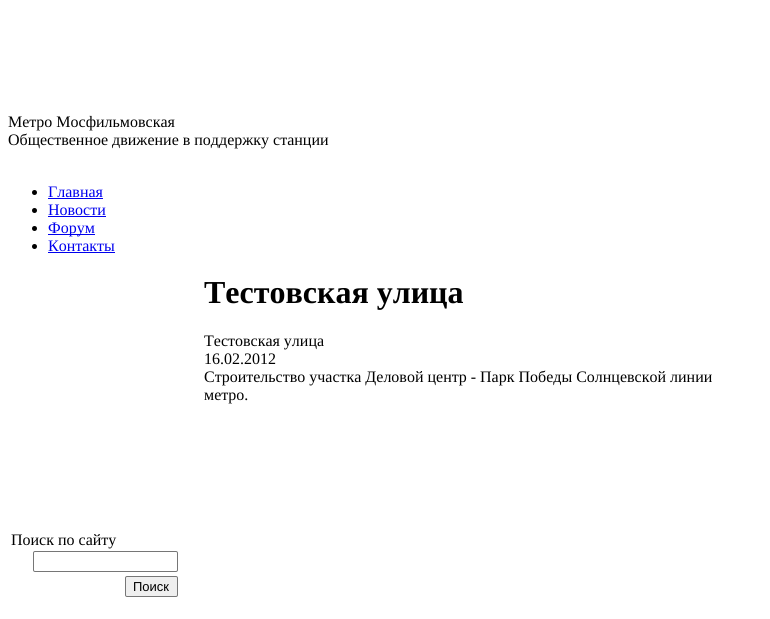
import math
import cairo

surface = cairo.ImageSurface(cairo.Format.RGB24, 770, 619)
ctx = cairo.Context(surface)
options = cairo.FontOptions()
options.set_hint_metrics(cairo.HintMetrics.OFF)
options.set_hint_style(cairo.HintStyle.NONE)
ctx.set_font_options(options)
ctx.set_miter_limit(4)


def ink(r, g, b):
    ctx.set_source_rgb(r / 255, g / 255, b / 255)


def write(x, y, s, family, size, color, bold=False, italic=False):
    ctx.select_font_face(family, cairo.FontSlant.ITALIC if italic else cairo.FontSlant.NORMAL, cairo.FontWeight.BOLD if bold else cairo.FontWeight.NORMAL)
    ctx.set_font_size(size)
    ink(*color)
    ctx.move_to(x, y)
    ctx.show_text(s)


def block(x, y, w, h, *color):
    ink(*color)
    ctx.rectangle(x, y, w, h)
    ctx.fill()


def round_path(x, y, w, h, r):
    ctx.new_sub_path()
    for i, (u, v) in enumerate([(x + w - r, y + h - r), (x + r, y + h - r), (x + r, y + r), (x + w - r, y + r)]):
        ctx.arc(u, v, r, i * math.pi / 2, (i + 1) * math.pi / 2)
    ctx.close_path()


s1 = dict(family="Liberation Serif", size=16, color=(0, 0, 0))
s2 = dict(family="Liberation Serif", size=16, color=(0, 0, 238))
s3 = dict(family="Liberation Serif", size=32, color=(0, 0, 0), bold=True)
s4 = dict(family="Liberation Sans", size=13, color=(0, 0, 0))

ink(255, 255, 255)
ctx.paint()
write(8, 127, "Метро Мосфильмовская", **s1)
write(8, 145, "Общественное движение в поддержку станции", **s1)
ctx.new_path()
ctx.arc(34.5, 192.5, 2.5, 0, 2 * math.pi)
ctx.fill()
write(48, 197, "Главная", **s2)
block(48, 198, 55, 1, 0, 0, 238)
ink(0, 0, 0)
ctx.new_path()
ctx.arc(34.5, 210.5, 2.5, 0, 2 * math.pi)
ctx.fill()
write(48, 215, "Новости", **s2)
block(48, 216, 58, 1, 0, 0, 238)
ink(0, 0, 0)
ctx.new_path()
ctx.arc(34.5, 228.5, 2.5, 0, 2 * math.pi)
ctx.fill()
block(48, 234, 47, 1, 0, 0, 238)
write(48, 233, "Форум", **s2)
ink(0, 0, 0)
ctx.new_path()
ctx.arc(34.5, 246.5, 2.5, 0, 2 * math.pi)
ctx.fill()
write(48, 251, "Контакты", **s2)
block(48, 252, 67, 1, 0, 0, 238)
write(204, 303, "Тестовская улица", **s3)
write(204, 346, "Тестовская улица", **s1)
write(204, 364, "16.02.2012", **s1)
write(204, 382, "Строительство участка Деловой центр - Парк Победы Солнцевской линии", **s1)
write(204, 400, "метро.", **s1)
write(11, 545, "Поиск по сайту", **s1)
round_path(33.5, 551.5, 144, 20, 1.5)
ink(118, 118, 118)
ctx.set_line_width(1)
ctx.stroke()
ink(239, 239, 239)
round_path(125.5, 576.5, 52, 20, 1.5)
ctx.fill_preserve()
ink(118, 118, 118)
ctx.stroke()
write(133, 591, "Поиск", **s4)
surface.write_to_png("screenshot.png")
